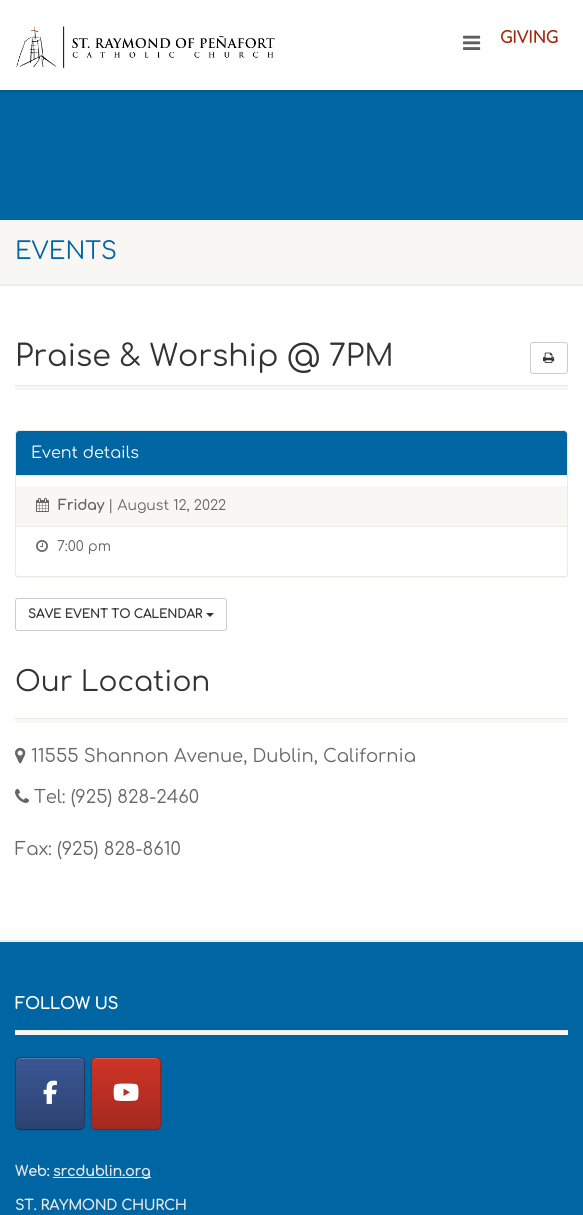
import math
import cairo

surface = cairo.ImageSurface(cairo.Format.RGB24, 583, 1215)
ctx = cairo.Context(surface)
options = cairo.FontOptions()
options.set_hint_metrics(cairo.HintMetrics.OFF)
options.set_hint_style(cairo.HintStyle.NONE)
ctx.set_font_options(options)
ctx.set_miter_limit(4)


def ink(r, g, b):
    ctx.set_source_rgb(r / 255, g / 255, b / 255)


def write(x, y, s, family, size, color, bold=False, italic=False):
    ctx.select_font_face(family, cairo.FontSlant.ITALIC if italic else cairo.FontSlant.NORMAL, cairo.FontWeight.BOLD if bold else cairo.FontWeight.NORMAL)
    ctx.set_font_size(size)
    ink(*color)
    ctx.move_to(x, y)
    ctx.show_text(s)


def block(x, y, w, h, *color):
    ink(*color)
    ctx.rectangle(x, y, w, h)
    ctx.fill()


def round_path(x, y, w, h, r):
    ctx.new_sub_path()
    for i, (u, v) in enumerate([(x + w - r, y + h - r), (x + r, y + h - r), (x + r, y + r), (x + w - r, y + r)]):
        ctx.arc(u, v, r, i * math.pi / 2, (i + 1) * math.pi / 2)
    ctx.close_path()


def blur_box(x, y, w, h, r, blur, alpha):
    ctx.push_group_with_content(cairo.Content.ALPHA)
    ctx.set_operator(cairo.Operator.SOURCE)
    for i in range(15, -16, -2):
        e = blur * i / 6
        if min(w, h) + 2 * e > 0:
            ctx.set_source_rgba(0, 0, 0, alpha * math.erfc((i - 1) / 8.5) / 2)
            round_path(x - e, y - e, w + 2 * e, h + 2 * e, max(0, min(r + e + blur * .6, min(w, h) / 2 + e)))
            ctx.fill()
    ctx.mask(ctx.pop_group())


def paste(path, x, y, w, h):
    ctx.save()
    ctx.set_source_surface(cairo.ImageSurface.create_from_png(path), x, y)
    ctx.rectangle(x, y, w, h)
    ctx.fill()
    ctx.restore()


s1 = dict(family="Comfortaa", size=16, color=(159, 44, 17), bold=True)
s2 = dict(family="Comfortaa", size=24, color=(0, 101, 163))
s3 = dict(family="Comfortaa", size=30, color=(51, 51, 51))
s4 = dict(family="Comfortaa", size=16, color=(255, 255, 255))
s5 = dict(family="Comfortaa", size=14, color=(102, 102, 102), bold=True)
s6 = dict(family="Comfortaa", size=14, color=(102, 102, 102))
s7 = dict(family="Comfortaa", size=12, color=(51, 51, 51), bold=True)
s8 = dict(family="Comfortaa", size=28, color=(51, 51, 51))
s9 = dict(family="Comfortaa", size=18, color=(102, 102, 102))
s10 = dict(family="Comfortaa", size=16, color=(255, 255, 255), bold=True)
s11 = dict(family="Comfortaa", size=14, color=(229, 229, 229), bold=True)

ink(255, 255, 255)
ctx.paint()
block(0, 90, 583, 2, 0, 91, 147)
paste("pic1.png", 16, 26, 259, 42)
paste("pic2.png", 463, 35, 18, 15)
write(500, 43, "GIVING", **s1)
block(0, 92, 583, 128, 0, 101, 163)
block(0, 284, 583, 2, 237, 237, 237)
block(0, 220, 583, 64, 248, 247, 243)
write(15, 259, "EVENTS", **s2)
block(15, 385, 553, 1, 236, 234, 228)
write(15, 366, "Praise & Worship @ 7PM", **s3)
round_path(530.5, 342.5, 37, 31, 2.5)
ink(204, 204, 204)
ctx.set_line_width(1)
ctx.stroke()
paste("pic3.png", 543, 352, 12, 11)
block(15, 386, 553, 4, 248, 247, 243)
ink(0, 0, 0)
blur_box(15, 431, 553, 147, 3, 0.5, 0.05)
ink(255, 255, 255)
round_path(15.5, 430.5, 552, 146, 2.5)
ctx.fill_preserve()
ink(236, 234, 228)
ctx.stroke()
ink(0, 101, 163)
ctx.new_path()
ctx.move_to(19, 431)
ctx.line_to(564, 431)
ctx.curve_to(565.5, 431, 567, 432.5, 567, 434)
ctx.line_to(567, 476)
ctx.line_to(16, 476)
ctx.line_to(16, 434)
ctx.curve_to(16, 432.5, 17.5, 431, 19, 431)
ctx.close_path()
ctx.fill()
block(16, 475, 551, 1, 236, 234, 228)
write(31, 458, "Event details", **s4)
block(16, 486, 551, 40, 248, 247, 243)
block(16, 526, 551, 1, 236, 234, 228)
paste("pic4.png", 36, 498, 13, 14)
write(58, 510, "Friday", **s5)
write(108, 510, "| August 12, 2022", **s6)
paste("pic5.png", 36, 540, 12, 12)
write(57, 551, "7:00 pm", **s6)
round_path(15.5, 598.5, 211, 32, 2.5)
ink(204, 204, 204)
ctx.stroke()
write(28, 618, "SAVE EVENT TO CALENDAR", **s7)
ctx.new_path()
ctx.move_to(206, 613)
ctx.line_to(214, 613)
ctx.line_to(210, 617)
ctx.close_path()
ctx.fill()
block(15, 719, 553, 4, 248, 247, 243)
block(15, 718, 553, 1, 236, 234, 228)
write(15, 691, "Our Location", **s8)
paste("pic6.png", 15, 747, 11, 17)
write(31, 762, "11555 Shannon Avenue, Dublin, California", **s9)
paste("pic7.png", 15, 788, 15, 15)
write(34, 803, "Tel: (925) 828-2460", **s9)
write(15, 855, "Fax: (925) 828-8610", **s9)
block(0, 940, 583, 2, 237, 237, 237)
block(0, 942, 583, 273, 0, 101, 163)
block(15, 1031, 553, 4, 248, 247, 243)
write(15, 1009, "FOLLOW US", **s10)
block(15, 1030, 553, 1, 236, 234, 228)
ink(0, 0, 0)
blur_box(15, 1058, 70, 73, 6, 1, 0.07)
ctx.save()
round_path(15, 1057, 70, 73, 6)
ctx.clip()
gradient = cairo.LinearGradient(16, 1129, 16, 1058)
gradient.add_color_stop_rgba(0, 0.173, 0.259, 0.439, 1)
gradient.add_color_stop_rgba(1, 0.227, 0.341, 0.584, 1)
ctx.set_source(gradient)
ctx.rectangle(15, 1058, 70, 71)
ctx.fill()
ctx.restore()
ink(97, 121, 170)
ctx.new_path()
ctx.move_to(21, 1059)
ctx.line_to(79, 1059)
ctx.curve_to(82, 1059, 84, 1061, 84, 1064)
ctx.curve_to(84, 1056, 75, 1058, 69, 1058)
ctx.line_to(31, 1058)
ctx.curve_to(25, 1058, 16, 1056, 16, 1064)
ctx.curve_to(16, 1061, 18, 1059, 21, 1059)
ctx.close_path()
ctx.fill()
ctx.new_path()
ctx.move_to(17, 1059)
ctx.curve_to(18, 1058, 19.5, 1057.5, 21, 1057.5)
ctx.line_to(79, 1057.5)
ctx.curve_to(80.5, 1057.5, 82, 1058, 83, 1059)
ink(39, 59, 101)
ctx.stroke()
ctx.new_path()
ctx.move_to(83, 1059)
ctx.curve_to(84, 1060, 84.5, 1061.5, 84.5, 1063)
ctx.line_to(84.5, 1124)
ctx.curve_to(84.5, 1125.5, 84, 1127, 83, 1128)
ink(37, 55, 94)
ctx.stroke()
ctx.new_path()
ctx.move_to(83, 1128)
ctx.curve_to(82, 1129, 80.5, 1129.5, 79, 1129.5)
ctx.line_to(21, 1129.5)
ctx.curve_to(19.5, 1129.5, 18, 1129, 17, 1128)
ink(32, 48, 83)
ctx.stroke()
ctx.new_path()
ctx.move_to(17, 1128)
ctx.curve_to(16, 1127, 15.5, 1125.5, 15.5, 1124)
ctx.line_to(15.5, 1063)
ctx.curve_to(15.5, 1061.5, 16, 1060, 17, 1059)
ink(37, 55, 94)
ctx.stroke()
paste("pic8.png", 43, 1080, 14, 24)
ink(0, 0, 0)
blur_box(91, 1058, 70, 73, 6, 1, 0.07)
ctx.save()
round_path(91, 1057, 70, 73, 6)
ctx.clip()
gradient = cairo.LinearGradient(92, 1129, 92, 1058)
gradient.add_color_stop_rgba(0, 0.643, 0.161, 0.122, 1)
gradient.add_color_stop_rgba(1, 0.812, 0.204, 0.153, 1)
ctx.set_source(gradient)
ctx.rectangle(91, 1058, 70, 71)
ctx.fill()
ctx.restore()
ink(217, 93, 82)
ctx.new_path()
ctx.move_to(97, 1059)
ctx.line_to(155, 1059)
ctx.curve_to(158, 1059, 160, 1061, 160, 1064)
ctx.curve_to(160, 1056, 151, 1058, 145, 1058)
ctx.line_to(107, 1058)
ctx.curve_to(101, 1058, 92, 1056, 92, 1064)
ctx.curve_to(92, 1061, 94, 1059, 97, 1059)
ctx.close_path()
ctx.fill()
ctx.new_path()
ctx.move_to(93, 1059)
ctx.curve_to(94, 1058, 95.5, 1057.5, 97, 1057.5)
ctx.line_to(155, 1057.5)
ctx.curve_to(156.5, 1057.5, 158, 1058, 159, 1059)
ink(151, 38, 28)
ctx.stroke()
ctx.new_path()
ctx.move_to(159, 1059)
ctx.curve_to(160, 1060, 160.5, 1061.5, 160.5, 1063)
ctx.line_to(160.5, 1124)
ctx.curve_to(160.5, 1125.5, 160, 1127, 159, 1128)
ink(143, 36, 27)
ctx.stroke()
ctx.new_path()
ctx.move_to(159, 1128)
ctx.curve_to(158, 1129, 156.5, 1129.5, 155, 1129.5)
ctx.line_to(97, 1129.5)
ctx.curve_to(95.5, 1129.5, 94, 1129, 93, 1128)
ink(130, 33, 24)
ctx.stroke()
ctx.new_path()
ctx.move_to(93, 1128)
ctx.curve_to(92, 1127, 91.5, 1125.5, 91.5, 1124)
ctx.line_to(91.5, 1063)
ctx.curve_to(91.5, 1061.5, 92, 1060, 93, 1059)
ink(143, 36, 27)
ctx.stroke()
paste("pic9.png", 113, 1083, 26, 18)
write(15, 1176, "Web:", **s11)
block(53, 1177, 98, 1, 229, 229, 229)
write(53, 1176, "srcdublin.org", **s11)
write(15, 1210, "ST. RAYMOND CHURCH", **s11)
surface.write_to_png("screenshot.png")
